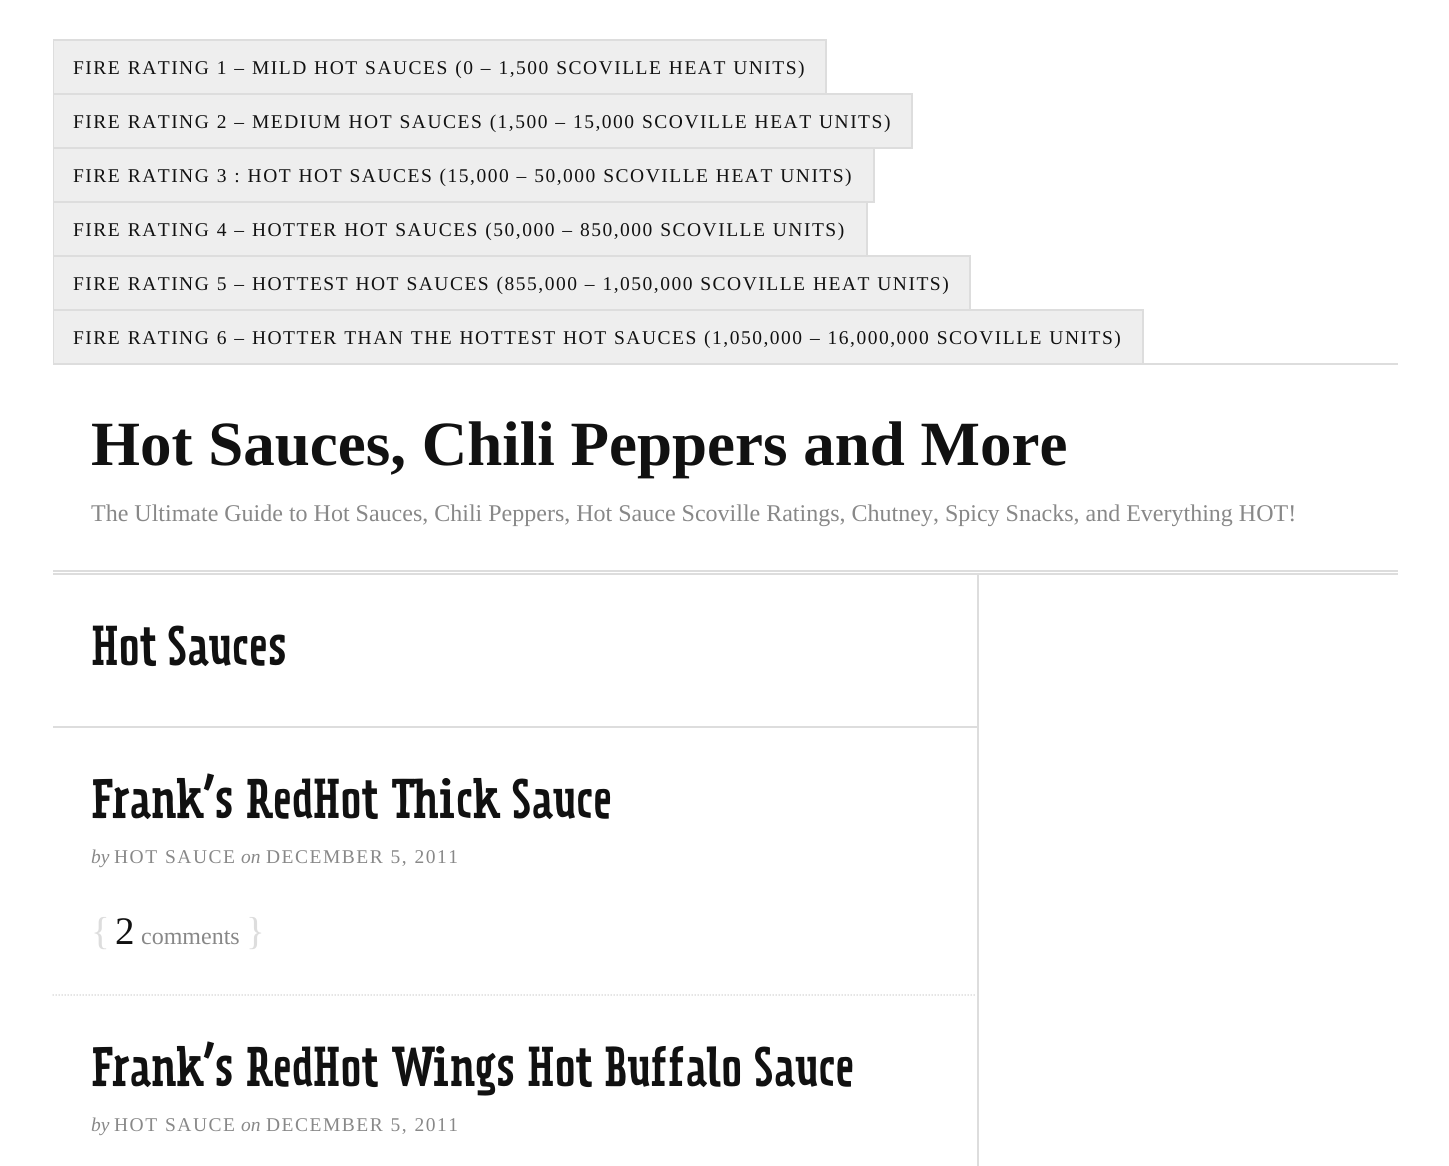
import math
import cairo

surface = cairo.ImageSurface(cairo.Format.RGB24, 1449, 1166)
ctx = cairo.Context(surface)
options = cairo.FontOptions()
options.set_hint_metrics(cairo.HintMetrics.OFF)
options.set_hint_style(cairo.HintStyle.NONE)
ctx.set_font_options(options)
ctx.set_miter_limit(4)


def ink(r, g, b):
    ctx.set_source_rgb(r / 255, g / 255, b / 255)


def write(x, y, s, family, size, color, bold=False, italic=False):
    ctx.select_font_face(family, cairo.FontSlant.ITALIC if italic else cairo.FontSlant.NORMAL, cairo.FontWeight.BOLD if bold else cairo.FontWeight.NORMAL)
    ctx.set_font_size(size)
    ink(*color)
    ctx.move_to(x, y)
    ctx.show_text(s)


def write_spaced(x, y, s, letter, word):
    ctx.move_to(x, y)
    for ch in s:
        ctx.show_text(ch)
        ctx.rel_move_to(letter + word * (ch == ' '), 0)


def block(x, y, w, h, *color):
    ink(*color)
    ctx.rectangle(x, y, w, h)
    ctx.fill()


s1 = dict(family="Liberation Serif", size=63, color=(17, 17, 17), bold=True)
s2 = dict(family="Liberation Serif", size=24, color=(136, 136, 136))
s3 = dict(family="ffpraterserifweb", size=49.5, color=(17, 17, 17))
s4 = dict(family="Liberation Serif", size=19.5, color=(136, 136, 136), italic=True)
s5 = dict(family="Liberation Serif", size=39, color=(221, 221, 221))
s6 = dict(family="Liberation Serif", size=39, color=(17, 17, 17))

ink(255, 255, 255)
ctx.paint()
block(53, 363, 1345, 2, 221, 221, 221)
block(53, 39, 2, 326, 221, 221, 221)
block(54, 41, 771, 52, 238, 238, 238)
block(54, 39, 773, 2, 221, 221, 221)
block(825, 39, 2, 56, 221, 221, 221)
ctx.select_font_face("Liberation Serif")
ctx.set_font_size(19.5)
ink(17, 17, 17)
write_spaced(73, 74, "FIRE RATING 1 – MILD HOT SAUCES (0 – 1,500 SCOVILLE HEAT UNITS)", 1.5, 0)
block(54, 95, 857, 52, 238, 238, 238)
block(54, 93, 858, 2, 221, 221, 221)
block(911, 93, 2, 56, 221, 221, 221)
block(54, 147, 858, 2, 221, 221, 221)
ink(17, 17, 17)
write_spaced(73, 128, "FIRE RATING 2 – MEDIUM HOT SAUCES (1,500 – 15,000 SCOVILLE HEAT UNITS)", 1.5, 0)
block(54, 149, 819, 52, 238, 238, 238)
block(873, 147, 2, 56, 221, 221, 221)
block(54, 201, 821, 2, 221, 221, 221)
ink(17, 17, 17)
write_spaced(73, 182, "FIRE RATING 3 : HOT HOT SAUCES (15,000 – 50,000 SCOVILLE HEAT UNITS)", 1.5, 0)
block(54, 203, 812, 52, 238, 238, 238)
block(866, 201, 2, 56, 221, 221, 221)
ink(17, 17, 17)
write_spaced(73, 236, "FIRE RATING 4 – HOTTER HOT SAUCES (50,000 – 850,000 SCOVILLE UNITS)", 1.5, 0)
block(54, 257, 915, 52, 238, 238, 238)
block(54, 255, 917, 2, 221, 221, 221)
block(969, 255, 2, 56, 221, 221, 221)
ink(17, 17, 17)
write_spaced(73, 290, "FIRE RATING 5 – HOTTEST HOT SAUCES (855,000 – 1,050,000 SCOVILLE HEAT UNITS)", 1.5, 0)
block(54, 311, 1088, 52, 238, 238, 238)
block(54, 309, 1089, 2, 221, 221, 221)
block(1142, 309, 2, 56, 221, 221, 221)
ink(17, 17, 17)
write_spaced(73, 344, "FIRE RATING 6 – HOTTER THAN THE HOTTEST HOT SAUCES (1,050,000 – 16,000,000 SCOVILLE UNITS)", 1.5, 0)
block(53, 570, 1345, 2, 221, 221, 221)
block(53, 573, 1345, 2, 221, 221, 221)
write(91, 465, "Hot Sauces, Chili Peppers and More", **s1)
write(91, 521, "The Ultimate Guide to Hot Sauces, Chili Peppers, Hot Sauce Scoville Ratings, Chutney, Spicy Snacks, and Everything HOT!", **s2)
block(977, 575, 2, 591, 221, 221, 221)
block(53, 726, 924, 2, 221, 221, 221)
ctx.select_font_face("ffpraterserifweb")
ctx.set_font_size(49.5)
ink(17, 17, 17)
write_spaced(91, 665, "Hot Sauces", 0, -1)
write(91, 818, "Frank’s RedHot Thick Sauce", **s3)
write(91, 863, "by", **s4)
ctx.select_font_face("Liberation Serif")
write_spaced(114, 863, "HOT SAUCE", 1.5, 0)
write(241, 863, "on", **s4)
ctx.select_font_face("Liberation Serif")
write_spaced(266, 863, "DECEMBER 5, 2011", 1.5, 0)
write(91, 944, "{", **s5)
write(115, 944, "2", **s6)
write(141, 944, "comments", **s2)
write(246, 944, "}", **s5)
ctx.new_path()
ctx.move_to(52.5, 995)
ctx.line_to(976.5, 995)
ctx.set_line_width(1.5)
ctx.set_dash([1.5, 1.5])
ctx.stroke()
write(91, 1086, "Frank’s RedHot Wings Hot Buffalo Sauce", **s3)
write(91, 1131, "by", **s4)
ctx.select_font_face("Liberation Serif")
write_spaced(114, 1131, "HOT SAUCE", 1.5, 0)
write(241, 1131, "on", **s4)
ctx.select_font_face("Liberation Serif")
write_spaced(266, 1131, "DECEMBER 5, 2011", 1.5, 0)
surface.write_to_png("screenshot.png")
